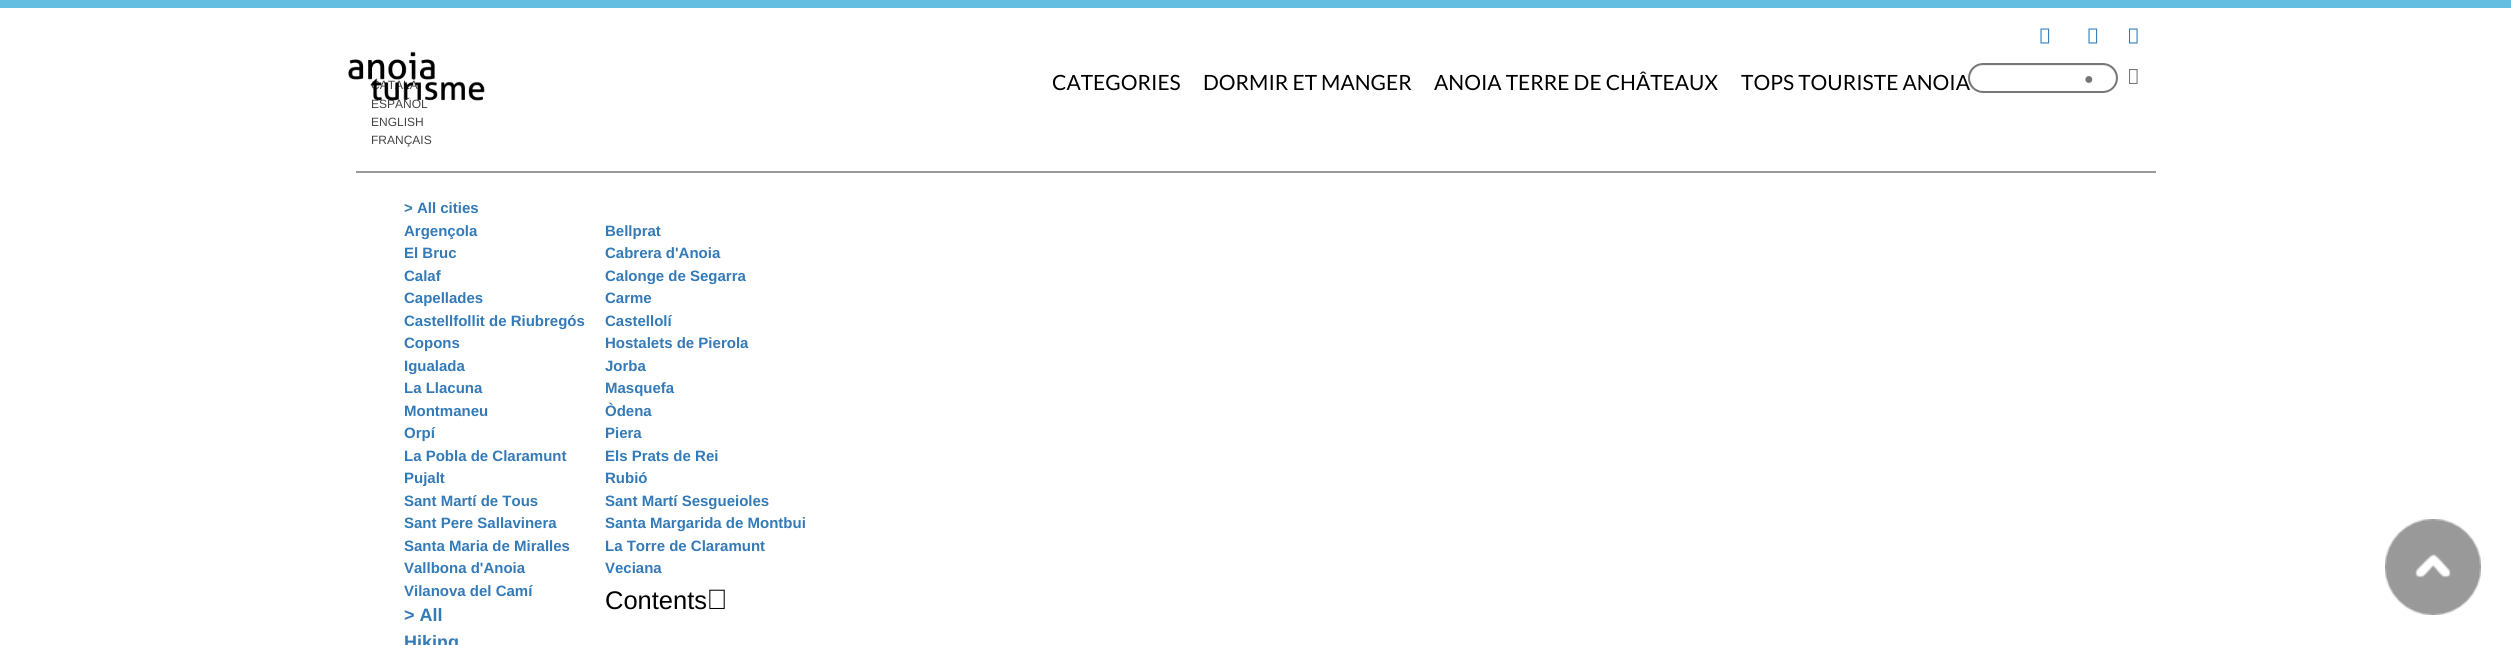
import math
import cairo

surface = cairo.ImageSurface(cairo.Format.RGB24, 2511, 645)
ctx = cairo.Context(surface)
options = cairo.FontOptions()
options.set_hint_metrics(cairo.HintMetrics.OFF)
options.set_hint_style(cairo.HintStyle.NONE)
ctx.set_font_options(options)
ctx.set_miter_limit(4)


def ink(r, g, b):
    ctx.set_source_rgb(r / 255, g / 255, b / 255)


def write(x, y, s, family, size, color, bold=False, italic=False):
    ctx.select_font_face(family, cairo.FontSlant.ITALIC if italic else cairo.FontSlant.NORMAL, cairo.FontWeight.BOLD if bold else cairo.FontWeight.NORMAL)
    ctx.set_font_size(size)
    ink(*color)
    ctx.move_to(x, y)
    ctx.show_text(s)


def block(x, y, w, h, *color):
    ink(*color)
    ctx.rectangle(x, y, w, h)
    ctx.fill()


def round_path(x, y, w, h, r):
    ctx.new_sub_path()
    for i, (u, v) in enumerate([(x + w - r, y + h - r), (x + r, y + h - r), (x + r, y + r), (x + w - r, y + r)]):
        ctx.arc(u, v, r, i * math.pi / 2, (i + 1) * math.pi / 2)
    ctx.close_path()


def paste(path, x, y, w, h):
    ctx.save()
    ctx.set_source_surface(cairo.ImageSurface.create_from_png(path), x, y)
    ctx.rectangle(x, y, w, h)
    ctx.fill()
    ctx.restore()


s1 = dict(family="Liberation Sans", size=12, color=(68, 68, 68))
s2 = dict(family="Lato", size=21, color=(0, 0, 0))
s3 = dict(family="Liberation Sans", size=16, color=(117, 117, 117))
s4 = dict(family="Liberation Sans", size=15, color=(51, 122, 183), bold=True)
s5 = dict(family="Liberation Sans", size=25.5, color=(0, 0, 0))
s6 = dict(family="Liberation Sans", size=18, color=(51, 122, 183), bold=True)

ink(255, 255, 255)
ctx.paint()
block(0, 0, 2511, 8, 99, 190, 225)
block(356, 171, 1800, 2, 153, 153, 153)
paste("pic1.png", 2040, 28, 10, 16)
paste("pic1.png", 2088, 28, 10, 16)
paste("pic2.png", 2128, 28, 10, 16)
write(371, 89, "CATALÀ", **s1)
write(371, 108, "ESPAÑOL", **s1)
paste("pic3.png", 348, 51, 137, 50)
write(1052, 90, "CATEGORIES", **s2)
write(1203, 90, "DORMIR ET MANGER", **s2)
write(1434, 90, "ANOIA TERRE DE CHÂTEAUX", **s2)
write(1741, 90, "TOPS TOURISTE ANOIA", **s2)
ink(236, 236, 236)
ctx.new_path()
ctx.move_to(1983, 66)
ctx.line_to(2103, 66)
ctx.curve_to(2110, 66, 2116, 72, 2116, 80)
ctx.curve_to(2116, 83, 2115, 86, 2113, 88)
ctx.curve_to(2116, 85, 2118, 80, 2117, 76)
ctx.curve_to(2114, 61, 2093, 65, 2084, 65)
ctx.line_to(2004, 65)
ctx.curve_to(1993, 65, 1969, 61, 1970, 79)
ctx.curve_to(1970, 72, 1976, 66, 1983, 66)
ctx.close_path()
ctx.fill()
round_path(1969, 64, 148, 28, 14)
ink(119, 119, 119)
ctx.stroke()
write(2084, 84, "●", **s3)
paste("pic4.png", 2129, 69, 9, 15)
write(371, 126, "ENGLISH", **s1)
write(371, 144, "FRANÇAIS", **s1)
write(404, 213, "> All cities", **s4)
write(404, 236, "Argençola", **s4)
write(605, 236, "Bellprat", **s4)
write(404, 258, "El Bruc", **s4)
write(605, 258, "Cabrera d'Anoia", **s4)
write(404, 281, "Calaf", **s4)
write(605, 281, "Calonge de Segarra", **s4)
write(404, 303, "Capellades", **s4)
write(605, 303, "Carme", **s4)
write(404, 326, "Castellfollit de Riubregós", **s4)
write(605, 326, "Castellolí", **s4)
write(404, 348, "Copons", **s4)
write(605, 348, "Hostalets de Pierola", **s4)
write(404, 371, "Igualada", **s4)
write(605, 371, "Jorba", **s4)
write(404, 393, "La Llacuna", **s4)
write(605, 393, "Masquefa", **s4)
write(404, 416, "Montmaneu", **s4)
write(605, 416, "Òdena", **s4)
write(404, 438, "Orpí", **s4)
write(605, 438, "Piera", **s4)
write(404, 461, "La Pobla de Claramunt", **s4)
write(605, 461, "Els Prats de Rei", **s4)
write(404, 483, "Pujalt", **s4)
write(605, 483, "Rubió", **s4)
write(404, 506, "Sant Martí de Tous", **s4)
write(605, 506, "Sant Martí Sesgueioles", **s4)
write(404, 528, "Sant Pere Sallavinera", **s4)
write(605, 528, "Santa Margarida de Montbui", **s4)
write(404, 551, "Santa Maria de Miralles", **s4)
write(605, 551, "La Torre de Claramunt", **s4)
write(404, 573, "Vallbona d'Anoia", **s4)
write(605, 573, "Veciana", **s4)
write(404, 596, "Vilanova del Camí", **s4)
write(605, 609, "Contents", **s5)
paste("pic5.png", 709, 589, 16, 20)
write(404, 621, "> All", **s6)
write(404, 648, "Hiking", **s6)
paste("pic6.png", 2385, 519, 96, 96)
surface.write_to_png("screenshot.png")
